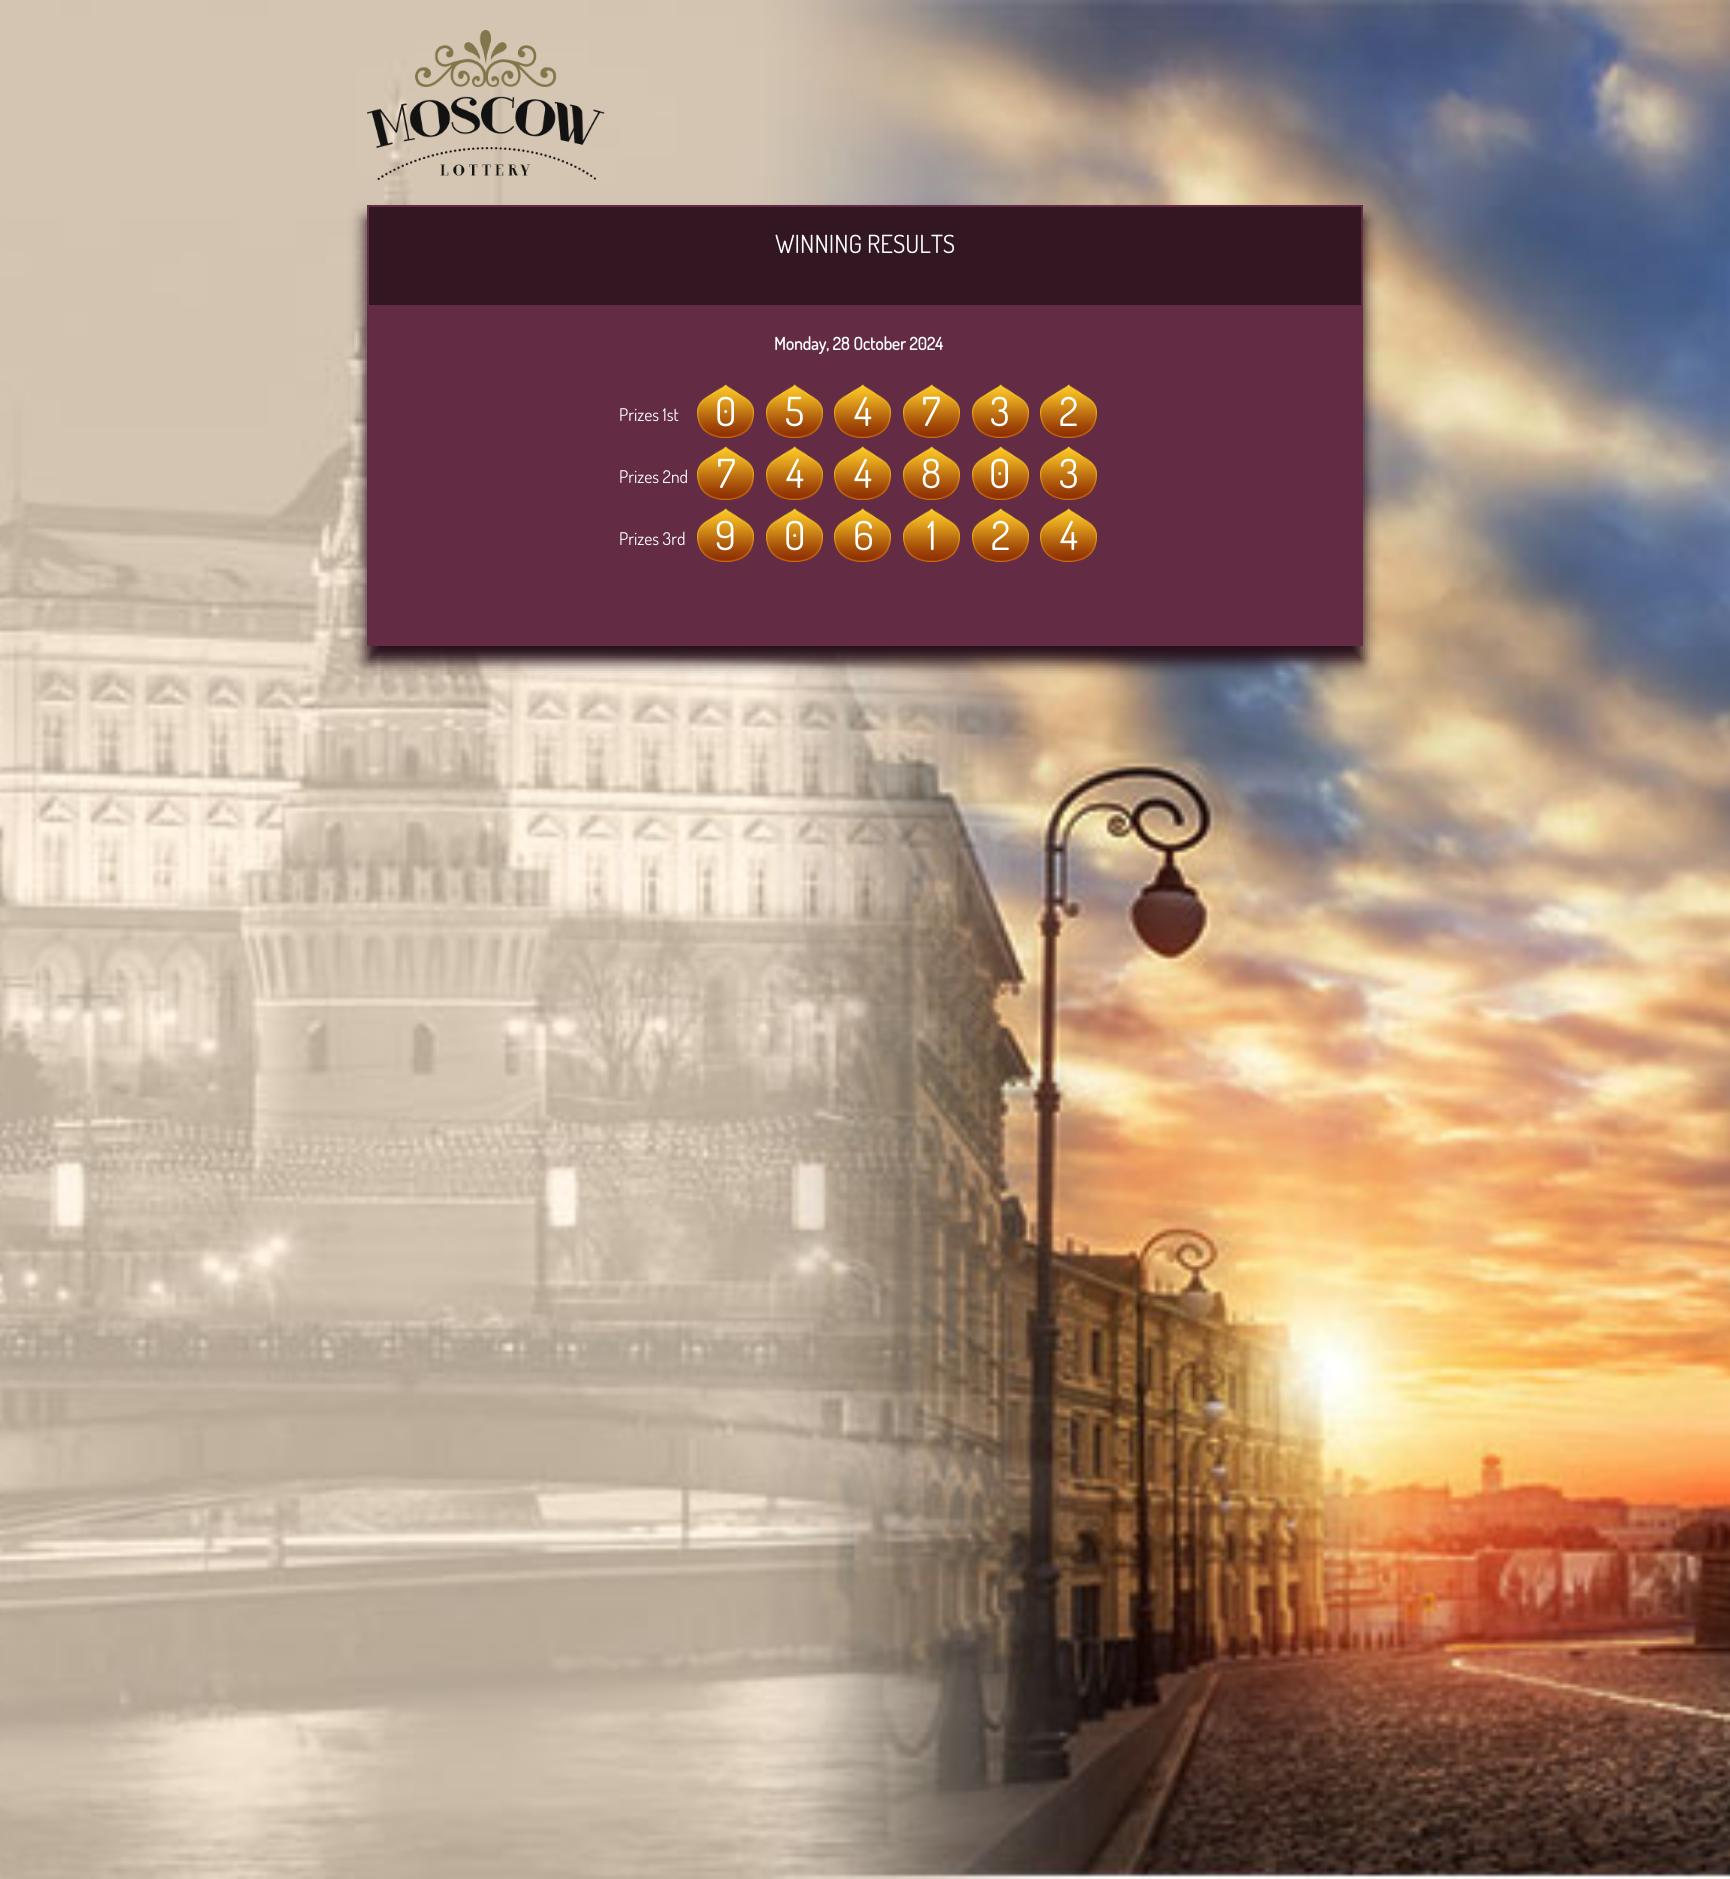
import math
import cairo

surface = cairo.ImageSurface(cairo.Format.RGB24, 1730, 1879)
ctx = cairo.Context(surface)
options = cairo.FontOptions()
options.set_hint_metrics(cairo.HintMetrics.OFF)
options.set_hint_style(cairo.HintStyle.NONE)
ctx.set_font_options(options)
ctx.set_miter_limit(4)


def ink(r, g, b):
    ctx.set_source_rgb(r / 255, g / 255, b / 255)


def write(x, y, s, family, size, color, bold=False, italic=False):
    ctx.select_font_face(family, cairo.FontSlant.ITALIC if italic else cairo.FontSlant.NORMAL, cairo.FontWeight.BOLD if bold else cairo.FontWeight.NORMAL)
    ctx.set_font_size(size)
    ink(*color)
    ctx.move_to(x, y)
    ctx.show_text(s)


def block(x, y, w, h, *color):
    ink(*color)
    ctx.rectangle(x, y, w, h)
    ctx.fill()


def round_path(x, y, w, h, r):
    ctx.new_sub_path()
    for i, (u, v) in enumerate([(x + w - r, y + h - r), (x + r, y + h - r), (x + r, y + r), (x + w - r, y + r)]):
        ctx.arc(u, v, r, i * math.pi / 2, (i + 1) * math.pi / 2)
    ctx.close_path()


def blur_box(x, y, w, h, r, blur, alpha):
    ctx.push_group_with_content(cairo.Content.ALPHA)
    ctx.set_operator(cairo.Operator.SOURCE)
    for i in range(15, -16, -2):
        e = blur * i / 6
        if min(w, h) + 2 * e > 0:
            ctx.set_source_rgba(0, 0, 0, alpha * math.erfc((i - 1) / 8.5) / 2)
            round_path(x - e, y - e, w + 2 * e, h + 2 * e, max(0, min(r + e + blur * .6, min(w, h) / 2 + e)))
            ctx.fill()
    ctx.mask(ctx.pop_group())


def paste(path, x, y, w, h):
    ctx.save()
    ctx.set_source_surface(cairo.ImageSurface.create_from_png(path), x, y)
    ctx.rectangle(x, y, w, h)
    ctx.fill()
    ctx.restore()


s1 = dict(family="Dosis", size=25, color=(255, 255, 255))
s2 = dict(family="Dosis", size=17.5, color=(255, 255, 255), bold=True)
s3 = dict(family="Dosis", size=17.5, color=(255, 255, 255))
s4 = dict(family="Dosis", size=40, color=(255, 255, 255))

ink(255, 255, 255)
ctx.paint()
paste("pic1.png", 0, 0, 1730, 1879)
paste("pic2.png", 367, 30, 238, 150)
ink(38, 15, 26)
blur_box(366, 219, 998, 443, 0, 7.5, 1)
block(367, 205, 996, 441, 99, 43, 68)
block(369, 207, 992, 98, 50, 22, 34)
write(775, 253, "WINNING RESULTS", **s1)
write(774, 350, "Monday, 28 October 2024", **s2)
write(619, 421, "Prizes 1st", **s3)
paste("pic3.png", 697, 384, 57, 54)
write(715, 426, "0", **s4)
paste("pic4.png", 766, 384, 57, 54)
write(785, 426, "5", **s4)
paste("pic4.png", 834, 384, 57, 54)
write(854, 426, "4", **s4)
paste("pic3.png", 903, 384, 57, 54)
write(922, 426, "7", **s4)
paste("pic3.png", 972, 384, 57, 54)
write(990, 426, "3", **s4)
paste("pic4.png", 1040, 384, 57, 54)
write(1059, 426, "2", **s4)
write(619, 483, "Prizes 2nd", **s3)
paste("pic3.png", 697, 446, 57, 54)
write(717, 488, "7", **s4)
paste("pic4.png", 766, 446, 57, 54)
write(786, 488, "4", **s4)
paste("pic4.png", 834, 446, 57, 54)
write(854, 488, "4", **s4)
paste("pic3.png", 903, 446, 57, 54)
write(921, 488, "8", **s4)
paste("pic3.png", 972, 446, 57, 54)
write(989, 488, "0", **s4)
paste("pic4.png", 1040, 446, 57, 54)
write(1059, 488, "3", **s4)
write(619, 545, "Prizes 3rd", **s3)
paste("pic3.png", 697, 508, 57, 54)
write(715, 550, "9", **s4)
paste("pic4.png", 766, 508, 57, 54)
write(784, 550, "0", **s4)
paste("pic4.png", 834, 508, 57, 54)
write(853, 550, "6", **s4)
paste("pic3.png", 903, 508, 57, 54)
write(927, 550, "1", **s4)
paste("pic3.png", 972, 508, 57, 54)
write(991, 550, "2", **s4)
paste("pic4.png", 1040, 508, 57, 54)
write(1060, 550, "4", **s4)
surface.write_to_png("screenshot.png")
